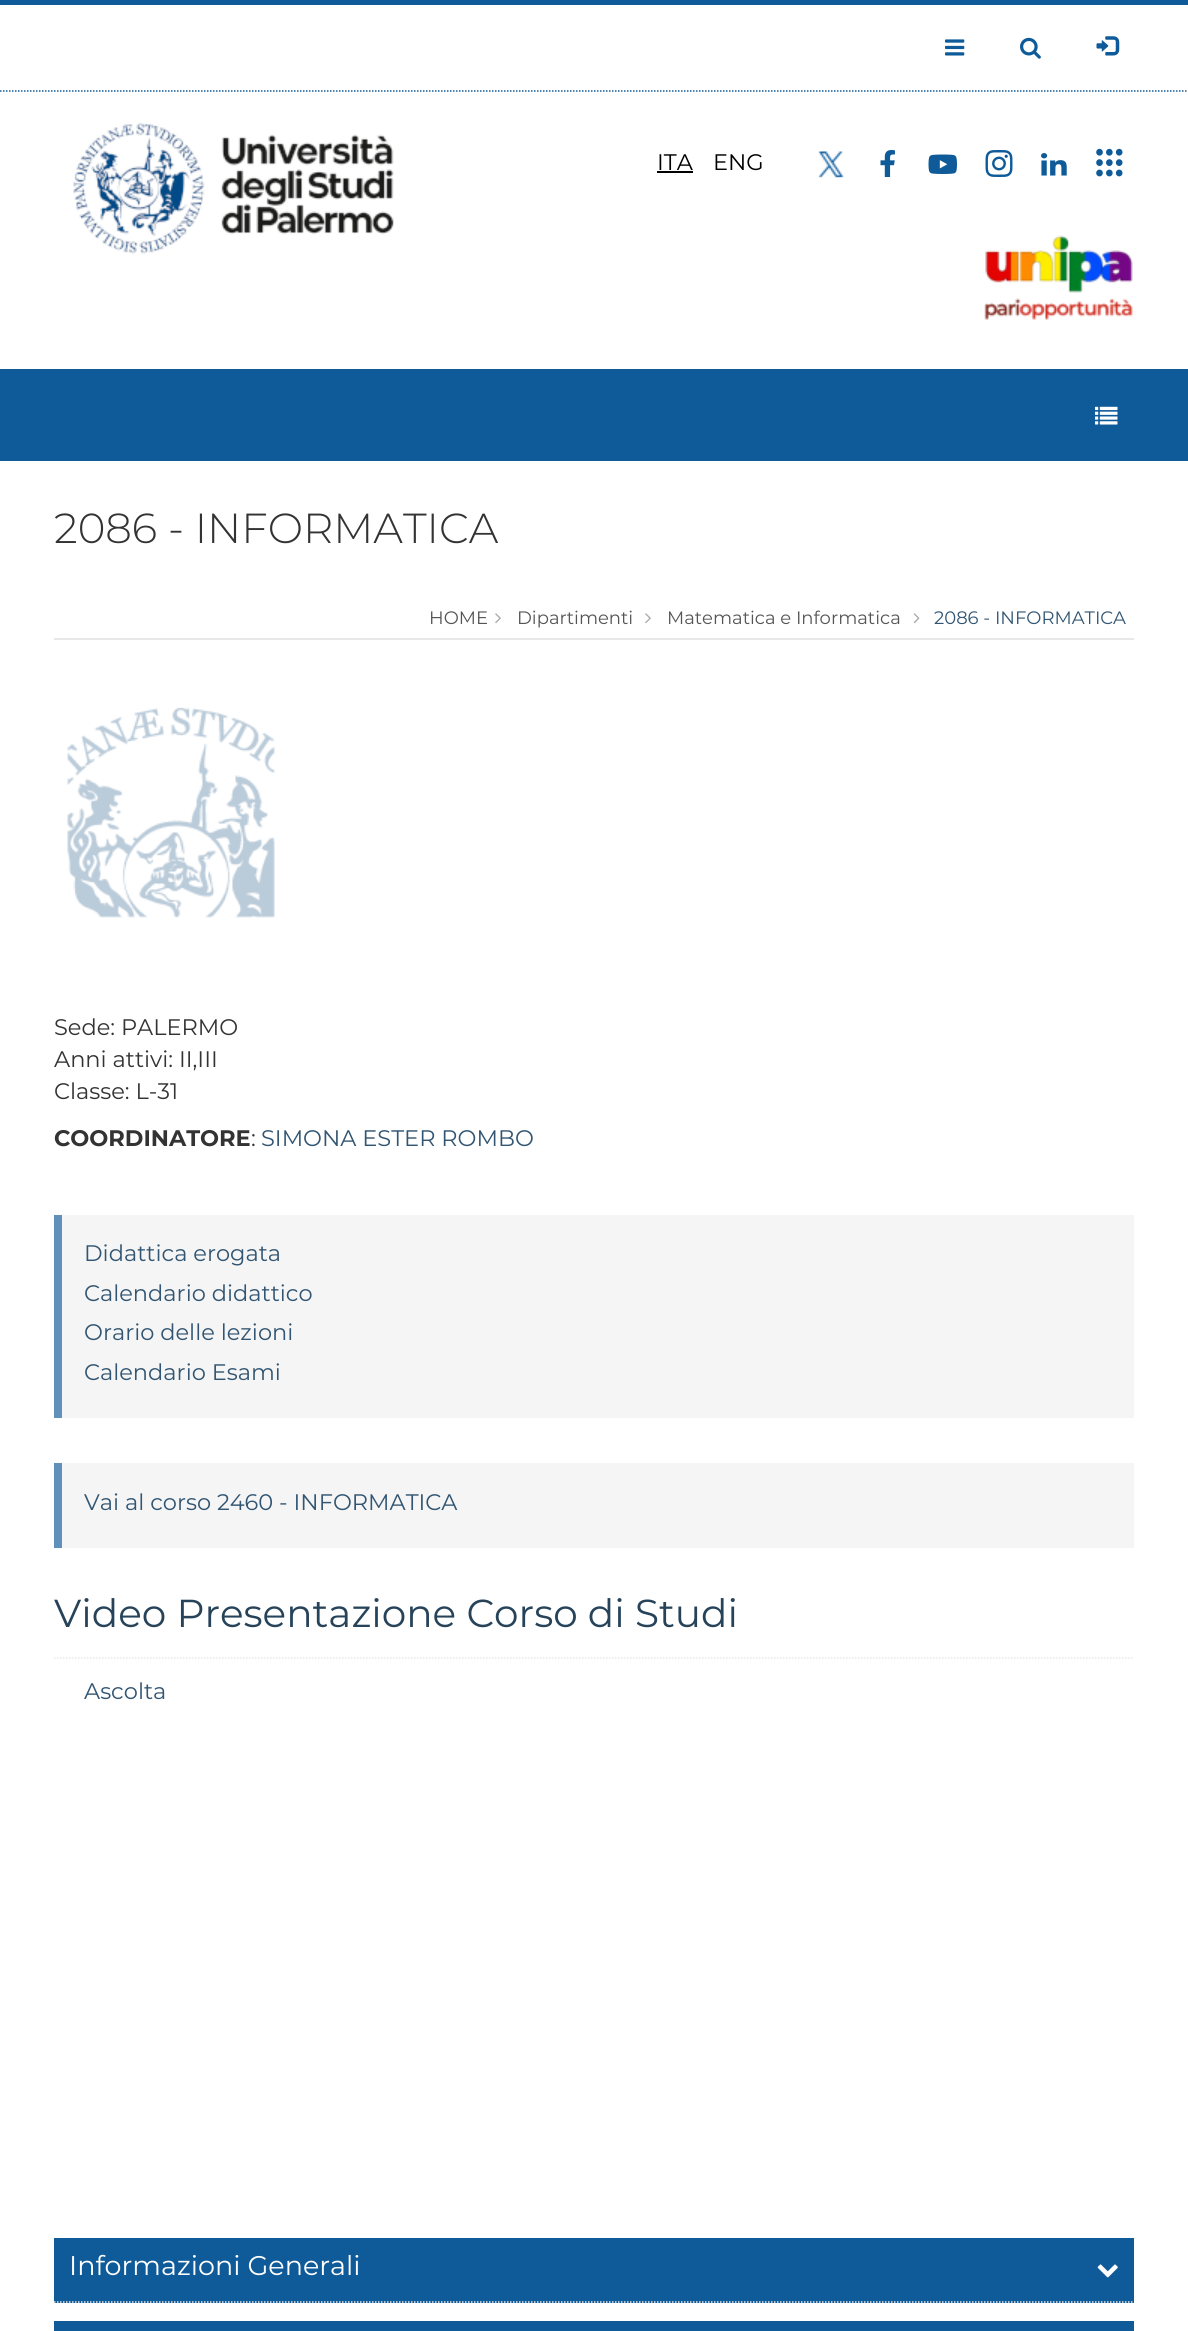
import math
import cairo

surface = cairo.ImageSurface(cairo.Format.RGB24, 1188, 2331)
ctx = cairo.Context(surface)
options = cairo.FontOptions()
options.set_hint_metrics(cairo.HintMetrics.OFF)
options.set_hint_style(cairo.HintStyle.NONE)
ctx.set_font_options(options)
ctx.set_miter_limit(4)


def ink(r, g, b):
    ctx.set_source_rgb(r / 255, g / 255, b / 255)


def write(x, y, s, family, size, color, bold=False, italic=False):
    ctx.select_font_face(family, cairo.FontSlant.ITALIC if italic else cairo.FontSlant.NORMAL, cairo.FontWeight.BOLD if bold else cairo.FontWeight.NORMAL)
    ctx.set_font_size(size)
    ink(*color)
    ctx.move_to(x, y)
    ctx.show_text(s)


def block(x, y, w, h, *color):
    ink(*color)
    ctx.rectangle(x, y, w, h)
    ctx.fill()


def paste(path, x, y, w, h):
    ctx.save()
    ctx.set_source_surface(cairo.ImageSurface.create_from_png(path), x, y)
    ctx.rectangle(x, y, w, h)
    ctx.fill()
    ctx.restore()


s1 = dict(family="Montserrat", size=22.5, color=(0, 0, 0))
s2 = dict(family="Montserrat Light", size=42, color=(51, 51, 51))
s3 = dict(family="Montserrat", size=18, color=(85, 85, 85))
s4 = dict(family="Montserrat", size=18, color=(49, 85, 114))
s5 = dict(family="Montserrat", size=22.5, color=(51, 51, 51))
s6 = dict(family="Montserrat", size=22.5, color=(51, 51, 51), bold=True)
s7 = dict(family="Montserrat", size=22.5, color=(49, 85, 114))
s8 = dict(family="Montserrat", size=39, color=(39, 67, 90))
s9 = dict(family="Montserrat", size=27, color=(255, 255, 255))

ink(255, 255, 255)
ctx.paint()
block(0, 0, 1188, 5, 15, 91, 153)
ctx.new_path()
ctx.move_to(0, 91)
ctx.line_to(1188, 91)
ctx.set_line_width(1.5)
ctx.set_dash([1.5, 1.5])
ctx.stroke()
paste("pic1.png", 945, 39, 20, 17)
paste("pic2.png", 1020, 37, 21, 22)
paste("pic3.png", 1096, 36, 24, 20)
paste("pic4.png", 73, 122, 321, 132)
write(657, 170, "ITA", **s1)
block(657, 171, 36, 2, 0, 0, 0)
write(713, 170, "ENG", **s1)
paste("pic5.png", 818, 151, 26, 27)
paste("pic6.png", 880, 150, 15, 27)
paste("pic7.png", 928, 154, 29, 20)
paste("pic8.png", 985, 150, 28, 27)
paste("pic9.png", 1041, 153, 26, 23)
paste("pic10.png", 1096, 148, 27, 29)
paste("pic11.png", 984, 235, 149, 85)
block(0, 369, 1188, 92, 15, 91, 153)
paste("pic12.png", 1095, 406, 23, 19)
block(54, 638, 1080, 2, 232, 232, 232)
write(54, 543, "2086 - INFORMATICA", **s2)
write(429, 624, "HOME", **s3)
paste("pic13.png", 495, 613, 6, 11)
write(517, 624, "Dipartimenti", **s3)
paste("pic13.png", 645, 613, 6, 11)
write(667, 624, "Matematica e Informatica", **s3)
paste("pic14.png", 913, 613, 7, 11)
write(934, 624, "2086 - INFORMATICA", **s4)
paste("pic15.png", 67, 707, 208, 211)
write(54, 1035, "Sede: PALERMO", **s5)
write(54, 1067, "Anni attivi: II,III", **s5)
write(54, 1099, "Classe: L-31", **s5)
write(54, 1146, "COORDINATORE", **s6)
write(251, 1146, ":", **s5)
write(261, 1146, "SIMONA ESTER ROMBO", **s7)
block(62, 1215, 1072, 203, 245, 245, 245)
block(54, 1215, 8, 203, 96, 145, 186)
write(84, 1261, "Didattica erogata", **s7)
write(84, 1301, "Calendario didattico", **s7)
write(84, 1340, "Orario delle lezioni", **s7)
write(84, 1380, "Calendario Esami", **s7)
block(62, 1463, 1072, 85, 245, 245, 245)
block(54, 1463, 8, 85, 96, 145, 186)
write(84, 1510, "Vai al corso 2460 - INFORMATICA", **s7)
ctx.new_path()
ctx.move_to(54, 1658)
ctx.line_to(1134, 1658)
ink(232, 232, 232)
ctx.stroke()
write(54, 1627, "Video Presentazione Corso di Studi", **s8)
write(84, 1699, "Ascolta", **s7)
block(54, 2238, 1080, 65, 15, 91, 153)
ctx.new_path()
ctx.move_to(54, 2302)
ctx.line_to(1134, 2302)
ink(232, 232, 232)
ctx.stroke()
write(69, 2275, "Informazioni Generali", **s9)
paste("pic16.png", 1097, 2264, 21, 14)
block(54, 2321, 1080, 10, 15, 91, 153)
surface.write_to_png("screenshot.png")
